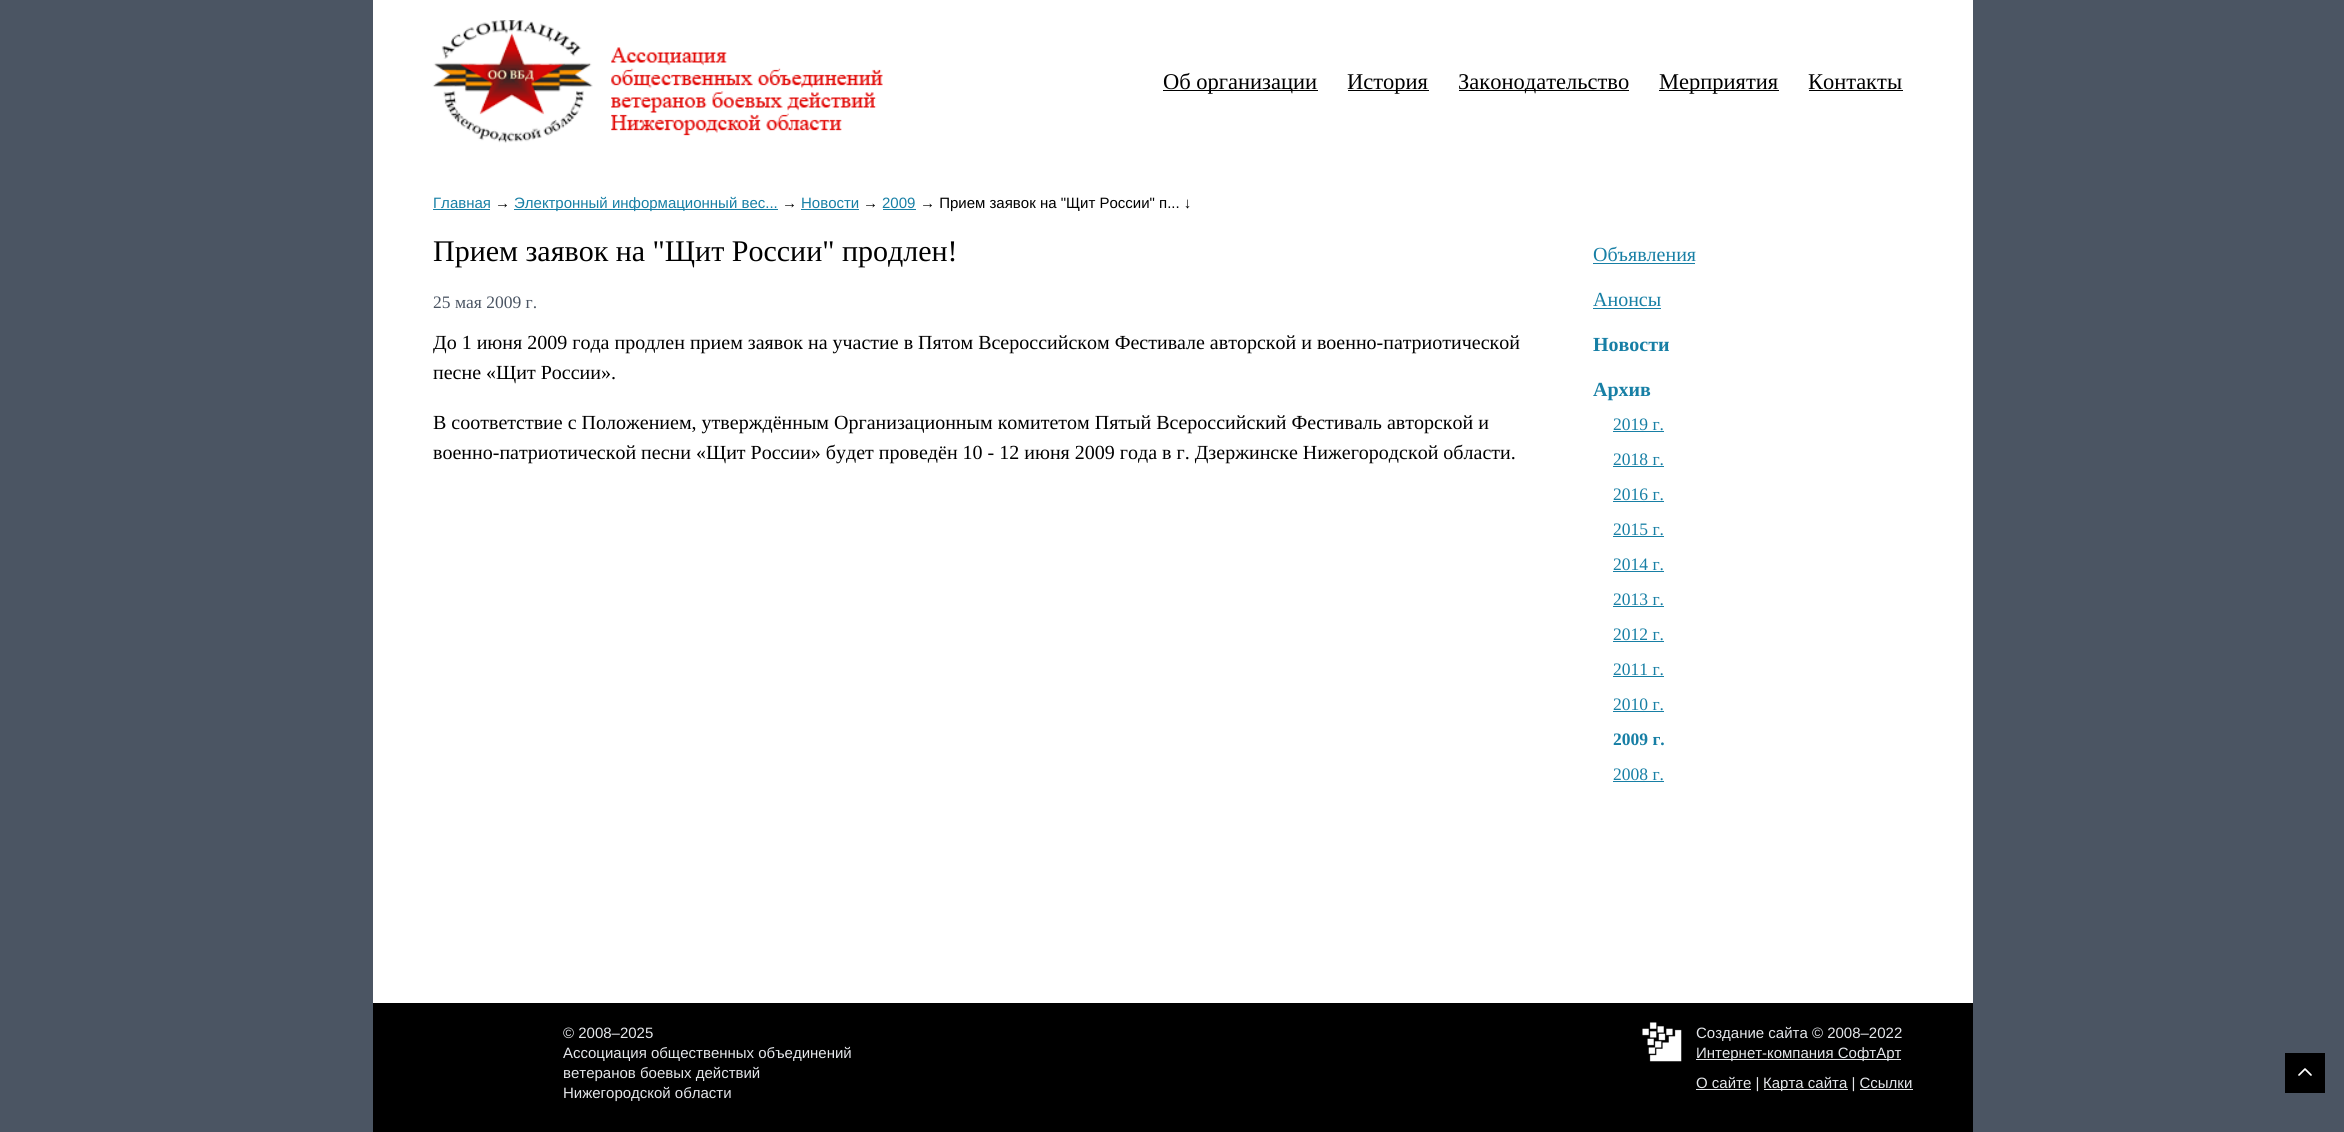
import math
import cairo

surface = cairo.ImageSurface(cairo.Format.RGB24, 2344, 1132)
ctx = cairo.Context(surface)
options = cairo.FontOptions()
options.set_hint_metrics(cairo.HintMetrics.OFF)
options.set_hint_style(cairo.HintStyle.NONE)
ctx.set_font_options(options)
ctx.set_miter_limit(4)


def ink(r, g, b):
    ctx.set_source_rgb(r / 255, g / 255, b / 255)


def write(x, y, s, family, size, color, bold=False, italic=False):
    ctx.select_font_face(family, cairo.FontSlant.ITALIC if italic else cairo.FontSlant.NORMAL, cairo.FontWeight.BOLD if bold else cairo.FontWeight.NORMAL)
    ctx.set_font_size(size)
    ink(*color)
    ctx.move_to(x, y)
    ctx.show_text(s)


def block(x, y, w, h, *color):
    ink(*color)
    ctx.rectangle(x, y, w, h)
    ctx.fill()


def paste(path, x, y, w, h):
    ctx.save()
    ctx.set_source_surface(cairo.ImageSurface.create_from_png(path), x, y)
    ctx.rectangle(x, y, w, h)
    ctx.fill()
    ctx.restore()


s1 = dict(family="Liberation Serif", size=22.5, color=(0, 0, 0))
s2 = dict(family="Liberation Sans", size=15, color=(23, 127, 165))
s3 = dict(family="Liberation Sans", size=15, color=(0, 0, 0))
s4 = dict(family="Liberation Serif", size=30, color=(0, 0, 0))
s5 = dict(family="Liberation Serif", size=17.5, color=(75, 85, 99))
s6 = dict(family="Liberation Serif", size=20, color=(0, 0, 0))
s7 = dict(family="Liberation Serif", size=20, color=(23, 127, 165))
s8 = dict(family="Liberation Serif", size=20, color=(23, 127, 165), bold=True)
s9 = dict(family="Liberation Serif", size=17.5, color=(23, 127, 165))
s10 = dict(family="Liberation Serif", size=17.5, color=(23, 127, 165), bold=True)
s11 = dict(family="Liberation Sans", size=15, color=(229, 231, 235))

ink(75, 85, 99)
ctx.paint()
block(373, 0, 1600, 1003, 255, 255, 255)
paste("pic1.png", 432, 20, 451, 123)
block(1163, 90, 155, 1, 0, 0, 0)
write(1163, 89, "Об организации", **s1)
block(1348, 90, 81, 1, 0, 0, 0)
write(1347, 89, "История", **s1)
block(1459, 90, 170, 1, 0, 0, 0)
write(1458, 89, "Законодательство", **s1)
block(1659, 90, 120, 1, 0, 0, 0)
write(1659, 89, "Мерприятия", **s1)
write(1808, 89, "Контакты", **s1)
block(1809, 90, 94, 1, 0, 0, 0)
write(433, 208, "Главная", **s2)
block(433, 209, 57, 1, 23, 127, 165)
write(495, 208, "→", **s3)
block(514, 209, 264, 1, 23, 127, 165)
write(514, 208, "Электронный информационный вес...", **s2)
write(782, 208, "→", **s3)
write(801, 208, "Новости", **s2)
block(801, 209, 58, 1, 23, 127, 165)
write(863, 208, "→", **s3)
write(882, 208, "2009", **s2)
block(883, 209, 33, 1, 23, 127, 165)
write(920, 208, "→ Прием заявок на \"Щит России\" п... ↓", **s3)
write(433, 261, "Прием заявок на \"Щит России\" продлен!", **s4)
write(433, 308, "25 мая 2009 г.", **s5)
write(433, 349, "До 1 июня 2009 года продлен прием заявок на участие в Пятом Всероссийском Фестивале авторской и военно-патриотической", **s6)
write(433, 379, "песне «Щит России».", **s6)
write(433, 429, "В соответствие с Положением, утверждённым Организационным комитетом Пятый Всероссийский Фестиваль авторской и", **s6)
write(433, 459, "военно-патриотической песни «Щит России» будет проведён 10 - 12 июня 2009 года в г. Дзержинске Нижегородской области.", **s6)
write(1593, 261, "Объявления", **s7)
block(1593, 263, 102, 1, 23, 127, 165)
write(1593, 306, "Анонсы", **s7)
block(1593, 308, 68, 1, 23, 127, 165)
write(1593, 351, "Новости", **s8)
write(1593, 396, "Архив", **s8)
write(1613, 430, "2019 г.", **s9)
block(1613, 431, 51, 1, 23, 127, 165)
write(1613, 465, "2018 г.", **s9)
block(1613, 466, 51, 1, 23, 127, 165)
write(1613, 500, "2016 г.", **s9)
block(1613, 501, 51, 1, 23, 127, 165)
write(1613, 535, "2015 г.", **s9)
block(1613, 536, 51, 1, 23, 127, 165)
write(1613, 570, "2014 г.", **s9)
block(1613, 571, 51, 1, 23, 127, 165)
write(1613, 605, "2013 г.", **s9)
block(1613, 606, 51, 1, 23, 127, 165)
write(1613, 640, "2012 г.", **s9)
block(1613, 641, 51, 1, 23, 127, 165)
write(1613, 675, "2011 г.", **s9)
block(1613, 676, 51, 1, 23, 127, 165)
write(1613, 710, "2010 г.", **s9)
block(1613, 711, 51, 1, 23, 127, 165)
write(1613, 745, "2009 г.", **s10)
write(1613, 780, "2008 г.", **s9)
block(1613, 781, 51, 1, 23, 127, 165)
block(373, 1003, 1600, 129, 0, 0, 0)
write(563, 1038, "© 2008–2025", **s11)
write(563, 1058, "Ассоциация общественных объединений", **s11)
write(563, 1078, "ветеранов боевых действий", **s11)
write(563, 1098, "Нижегородской области", **s11)
paste("pic2.png", 1642, 1022, 40, 40)
write(1696, 1038, "Создание сайта © 2008–2022", **s11)
block(1696, 1059, 205, 1, 229, 231, 235)
write(1696, 1058, "Интернет-компания СофтАрт", **s11)
block(1696, 1089, 55, 1, 229, 231, 235)
write(1696, 1088, "О сайте |", **s11)
block(1764, 1089, 84, 1, 229, 231, 235)
write(1763, 1088, "Карта сайта | Ссылки", **s11)
block(1860, 1089, 53, 1, 229, 231, 235)
block(2285, 1053, 40, 40, 0, 0, 0)
ctx.new_path()
ctx.move_to(2299, 1075)
ctx.line_to(2305, 1069)
ctx.line_to(2311, 1075)
ink(255, 255, 255)
ctx.set_line_width(1.7)
ctx.set_line_cap(cairo.LineCap.ROUND)
ctx.set_line_join(cairo.LineJoin.ROUND)
ctx.stroke()
surface.write_to_png("screenshot.png")
